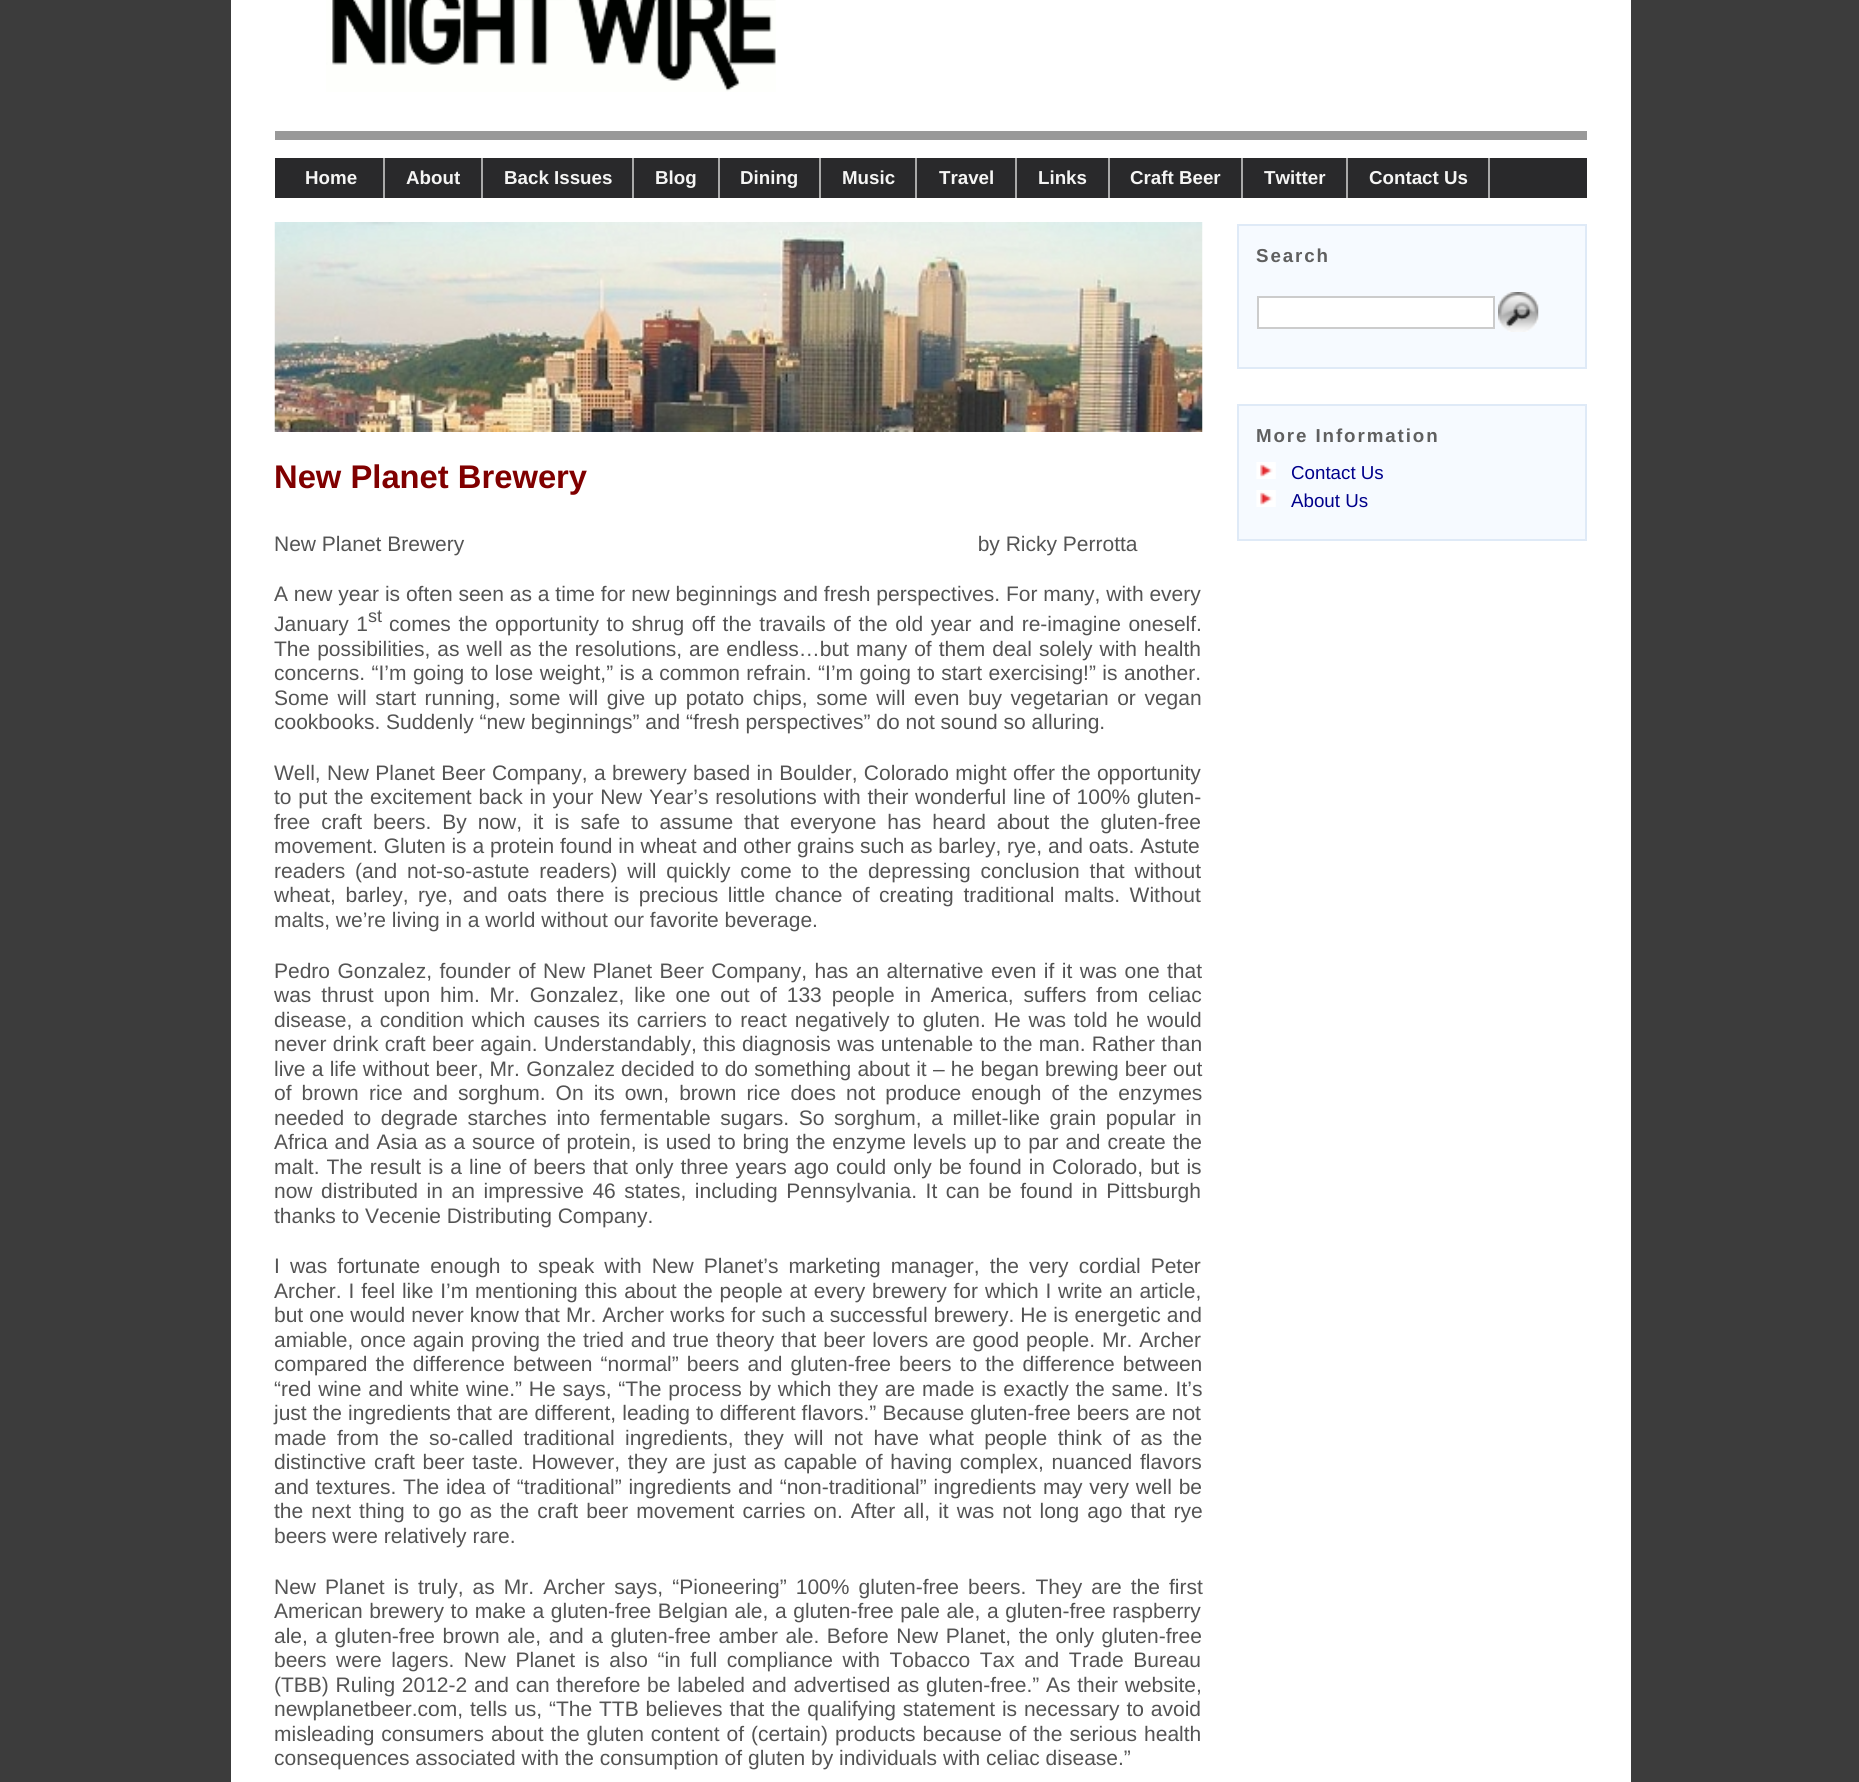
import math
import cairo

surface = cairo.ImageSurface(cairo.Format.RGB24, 1859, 1782)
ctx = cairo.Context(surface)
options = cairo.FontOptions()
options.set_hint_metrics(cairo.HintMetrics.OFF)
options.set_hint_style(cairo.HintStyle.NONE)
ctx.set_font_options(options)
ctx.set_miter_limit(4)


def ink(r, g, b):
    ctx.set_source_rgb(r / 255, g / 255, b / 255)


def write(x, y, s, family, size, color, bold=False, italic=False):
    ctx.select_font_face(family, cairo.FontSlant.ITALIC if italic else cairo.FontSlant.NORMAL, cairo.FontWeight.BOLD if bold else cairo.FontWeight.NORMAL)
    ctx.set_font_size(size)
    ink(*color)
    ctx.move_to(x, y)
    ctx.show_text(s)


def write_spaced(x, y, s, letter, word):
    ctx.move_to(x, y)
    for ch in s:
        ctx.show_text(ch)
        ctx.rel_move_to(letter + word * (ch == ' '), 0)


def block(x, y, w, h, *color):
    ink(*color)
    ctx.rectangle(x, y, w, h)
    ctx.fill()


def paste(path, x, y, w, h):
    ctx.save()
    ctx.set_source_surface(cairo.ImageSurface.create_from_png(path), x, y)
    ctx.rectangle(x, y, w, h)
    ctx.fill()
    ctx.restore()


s1 = dict(family="Liberation Sans", size=18.75, color=(245, 245, 244), bold=True)
s2 = dict(family="Liberation Sans", size=18.75, color=(0, 0, 139))
s3 = dict(family="Liberation Sans", size=32.75, color=(128, 0, 0), bold=True)
s4 = dict(family="Liberation Sans", size=21, color=(84, 84, 84))
s5 = dict(family="Liberation Sans", size=18, color=(84, 84, 84))

ink(60, 60, 60)
ctx.paint()
block(231, 0, 1400, 1782, 255, 255, 255)
paste("pic1.png", 326, 0, 450, 92)
block(275, 131, 1312, 9, 153, 153, 153)
block(275, 158, 1312, 40, 41, 41, 43)
block(383, 158, 2, 40, 169, 169, 169)
write(305, 184, "Home", **s1)
block(481, 158, 2, 40, 169, 169, 169)
write(406, 184, "About", **s1)
block(632, 158, 2, 40, 169, 169, 169)
write(504, 184, "Back Issues", **s1)
block(718, 158, 2, 40, 169, 169, 169)
write(655, 184, "Blog", **s1)
block(819, 158, 2, 40, 169, 169, 169)
write(740, 184, "Dining", **s1)
block(915, 158, 2, 40, 169, 169, 169)
write(842, 184, "Music", **s1)
block(1015, 158, 2, 40, 169, 169, 169)
write(939, 184, "Travel", **s1)
block(1108, 158, 2, 40, 169, 169, 169)
write(1038, 184, "Links", **s1)
block(1241, 158, 2, 40, 169, 169, 169)
write(1130, 184, "Craft Beer", **s1)
block(1346, 158, 2, 40, 169, 169, 169)
write(1264, 184, "Twitter", **s1)
block(1488, 158, 2, 40, 169, 169, 169)
write(1369, 184, "Contact Us", **s1)
ink(246, 250, 255)
ctx.rectangle(1238, 225, 348, 143)
ctx.fill_preserve()
ink(223, 234, 247)
ctx.stroke()
ink(95, 95, 95)
write_spaced(1256, 262, "Search", 1.9, 0)
ink(255, 255, 255)
ctx.rectangle(1258, 297, 236, 31)
ctx.fill_preserve()
ink(204, 204, 204)
ctx.stroke()
paste("pic2.png", 1498, 292, 41, 40)
ink(246, 250, 255)
ctx.rectangle(1238, 405, 348, 135)
ctx.fill_preserve()
ink(223, 234, 247)
ctx.stroke()
ink(95, 95, 95)
write_spaced(1256, 442, "More Information", 1.9, 0)
paste("pic3.png", 1256, 462, 20, 17)
write(1291, 479, "Contact Us", **s2)
paste("pic3.png", 1256, 490, 20, 17)
write(1291, 507, "About Us", **s2)
paste("pic4.png", 274, 222, 929, 210)
write(274, 488, "New Planet Brewery", **s3)
write(274, 551, "New Planet Brewery                                                                                        by Ricky Perrotta", **s4)
write(274, 601, "A new year is often seen as a time for new beginnings and fresh perspectives. For many, with every", **s4)
write_spaced(274, 631, "January 1", 0, 1.7)
write(368, 622, "st", **s5)
ctx.set_font_size(21)
write_spaced(389, 631, "comes the opportunity to shrug off the travails of the old year and re-imagine oneself.", 0, 1.7)
write_spaced(274, 656, "The possibilities, as well as the resolutions, are endless…but many of them deal solely with health", 0, 1.1)
write_spaced(274, 680, "concerns. “I’m going to lose weight,” is a common refrain. “I’m going to start exercising!” is another.", 0, 0.6)
write_spaced(274, 705, "Some will start running, some will give up potato chips, some will even buy vegetarian or vegan", 0, 2.75)
write(274, 729, "cookbooks. Suddenly “new beginnings” and “fresh perspectives” do not sound so alluring.", **s4)
write_spaced(274, 780, "Well, New Planet Beer Company, a brewery based in Boulder, Colorado might offer the opportunity", 0, 0.5)
write_spaced(274, 804, "to put the excitement back in your New Year’s resolutions with their wonderful line of 100% gluten-", 0, 0.9)
write_spaced(274, 829, "free craft beers. By now, it is safe to assume that everyone has heard about the gluten-free", 0, 5.1)
write(274, 853, "movement. Gluten is a protein found in wheat and other grains such as barley, rye, and oats. Astute", **s4)
write_spaced(274, 878, "readers (and not-so-astute readers) will quickly come to the depressing conclusion that without", 0, 4)
write_spaced(274, 902, "wheat, barley, rye, and oats there is precious little chance of creating traditional malts. Without", 0, 3.75)
write(274, 927, "malts, we’re living in a world without our favorite beverage.", **s4)
write_spaced(274, 978, "Pedro Gonzalez, founder of New Planet Beer Company, has an alternative even if it was one that", 0, 1.6)
write_spaced(274, 1002, "was thrust upon him. Mr. Gonzalez, like one out of 133 people in America, suffers from celiac", 0, 4)
write_spaced(274, 1027, "disease, a condition which causes its carriers to react negatively to gluten. He was told he would", 0, 2.1)
write_spaced(274, 1051, "never drink craft beer again. Understandably, this diagnosis was untenable to the man. Rather than", 0, 0.5)
write_spaced(274, 1076, "live a life without beer, Mr. Gonzalez decided to do something about it – he began brewing beer out", 0, 0.4)
write_spaced(274, 1100, "of brown rice and sorghum. On its own, brown rice does not produce enough of the enzymes", 0, 4.25)
write_spaced(274, 1125, "needed to degrade starches into fermentable sugars. So sorghum, a millet-like grain popular in", 0, 3.75)
write_spaced(274, 1149, "Africa and Asia as a source of protein, is used to bring the enzyme levels up to par and create the", 0, 1.1)
write_spaced(274, 1174, "malt. The result is a line of beers that only three years ago could only be found in Colorado, but is", 0, 1.2)
write_spaced(274, 1198, "now distributed in an impressive 46 states, including Pennsylvania. It can be found in Pittsburgh", 0, 2.75)
write(274, 1223, "thanks to Vecenie Distributing Company.", **s4)
write_spaced(274, 1273, "I was fortunate enough to speak with New Planet’s marketing manager, the very cordial Peter", 0, 4.25)
write_spaced(274, 1298, "Archer. I feel like I’m mentioning this about the people at every brewery for which I write an article,", 0, 1)
write_spaced(274, 1322, "but one would never know that Mr. Archer works for such a successful brewery. He is energetic and", 0, 0.2)
write_spaced(274, 1347, "amiable, once again proving the tried and true theory that beer lovers are good people. Mr. Archer", 0, 1.1)
write_spaced(274, 1371, "compared the difference between “normal” beers and gluten-free beers to the difference between", 0, 2.25)
write_spaced(274, 1396, "“red wine and white wine.” He says, “The process by which they are made is exactly the same. It’s", 0, 1)
write_spaced(274, 1420, "just the ingredients that are different, leading to different flavors.” Because gluten-free beers are not", 0, 0.25)
write_spaced(274, 1445, "made from the so-called traditional ingredients, they will not have what people think of as the", 0, 4.6)
write_spaced(274, 1469, "distinctive craft beer taste. However, they are just as capable of having complex, nuanced flavors", 0, 1.9)
write_spaced(274, 1494, "and textures. The idea of “traditional” ingredients and “non-traditional” ingredients may very well be", 0, 0.9)
write_spaced(274, 1518, "the next thing to go as the craft beer movement carries on. After all, it was not long ago that rye", 0, 2.25)
write(274, 1543, "beers were relatively rare.", **s4)
write_spaced(274, 1594, "New Planet is truly, as Mr. Archer says, “Pioneering” 100% gluten-free beers. They are the first", 0, 3.25)
write_spaced(274, 1618, "American brewery to make a gluten-free Belgian ale, a gluten-free pale ale, a gluten-free raspberry", 0, 0.75)
write_spaced(274, 1643, "ale, a gluten-free brown ale, and a gluten-free amber ale. Before New Planet, the only gluten-free", 0, 1.7)
write_spaced(274, 1667, "beers were lagers. New Planet is also “in full compliance with Tobacco Tax and Trade Bureau", 0, 3.75)
write_spaced(274, 1692, "(TBB) Ruling 2012-2 and can therefore be labeled and advertised as gluten-free.” As their website,", 0, 0.9)
write_spaced(274, 1716, "newplanetbeer.com, tells us, “The TTB believes that the qualifying statement is necessary to avoid", 0, 1)
write_spaced(274, 1741, "misleading consumers about the gluten content of (certain) products because of the serious health", 0, 1.1)
write(274, 1765, "consequences associated with the consumption of gluten by individuals with celiac disease.”", **s4)
surface.write_to_png("screenshot.png")
